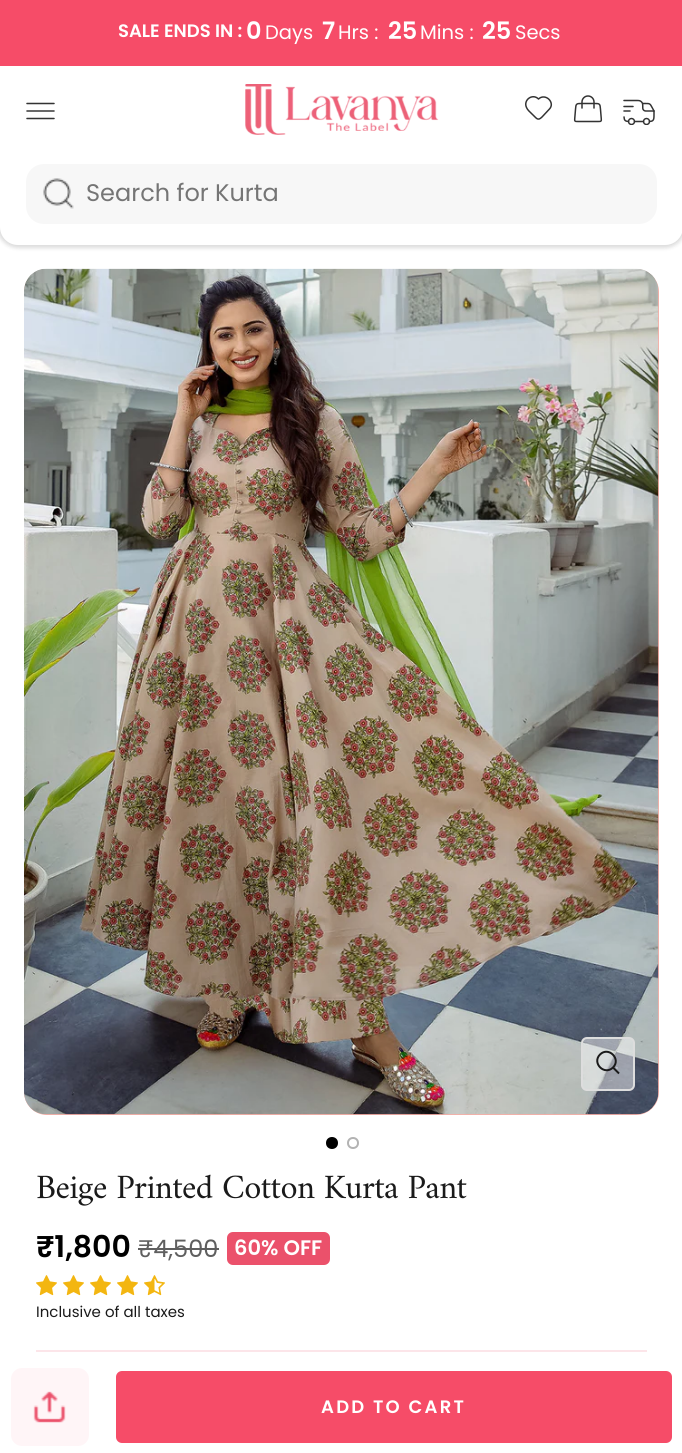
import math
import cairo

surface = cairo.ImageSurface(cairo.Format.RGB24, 682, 1453)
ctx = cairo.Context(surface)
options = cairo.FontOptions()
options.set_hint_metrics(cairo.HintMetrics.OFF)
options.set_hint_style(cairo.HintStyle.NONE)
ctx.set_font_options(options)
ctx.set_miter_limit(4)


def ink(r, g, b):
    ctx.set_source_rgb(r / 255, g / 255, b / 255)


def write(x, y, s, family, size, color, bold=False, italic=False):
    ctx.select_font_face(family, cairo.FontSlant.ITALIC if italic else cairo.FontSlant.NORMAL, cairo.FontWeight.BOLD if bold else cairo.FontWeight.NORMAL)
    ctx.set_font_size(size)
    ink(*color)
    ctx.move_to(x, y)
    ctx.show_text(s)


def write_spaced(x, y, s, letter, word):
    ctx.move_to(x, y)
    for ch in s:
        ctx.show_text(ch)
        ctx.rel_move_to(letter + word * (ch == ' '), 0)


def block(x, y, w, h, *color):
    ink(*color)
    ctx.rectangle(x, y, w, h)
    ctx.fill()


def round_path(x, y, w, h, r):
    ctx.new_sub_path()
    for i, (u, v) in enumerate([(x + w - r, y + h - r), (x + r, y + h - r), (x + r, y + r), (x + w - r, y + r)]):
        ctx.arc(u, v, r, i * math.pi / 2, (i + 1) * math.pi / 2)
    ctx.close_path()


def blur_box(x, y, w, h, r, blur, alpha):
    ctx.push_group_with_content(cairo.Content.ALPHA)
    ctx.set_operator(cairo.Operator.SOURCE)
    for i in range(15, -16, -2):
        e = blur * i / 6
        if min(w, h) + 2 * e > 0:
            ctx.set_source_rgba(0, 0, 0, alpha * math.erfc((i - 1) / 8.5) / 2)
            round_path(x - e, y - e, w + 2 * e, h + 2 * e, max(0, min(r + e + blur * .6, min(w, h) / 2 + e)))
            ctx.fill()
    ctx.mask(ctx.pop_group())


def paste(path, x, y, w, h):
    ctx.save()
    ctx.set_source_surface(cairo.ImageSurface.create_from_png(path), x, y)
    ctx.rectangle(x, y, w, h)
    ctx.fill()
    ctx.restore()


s1 = dict(family="Poppins SemiBold", size=18, color=(255, 255, 255))
s2 = dict(family="Poppins SemiBold", size=24, color=(255, 255, 255))
s3 = dict(family="Poppins", size=19.5, color=(255, 255, 255))
s4 = dict(family="Poppins", size=24, color=(117, 117, 117))
s5 = dict(family="Poppins SemiBold", size=30, color=(0, 0, 0))
s6 = dict(family="Poppins", size=24, color=(95, 95, 95))
s7 = dict(family="Poppins SemiBold", size=21, color=(255, 255, 255))
s8 = dict(family="Poppins", size=15, color=(26, 26, 26))

ink(255, 255, 255)
ctx.paint()
ink(0, 0, 0)
blur_box(-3, 63, 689, 185, 21, 2, 0.14)
block(0, 0, 682, 66, 246, 76, 104)
write(118, 37, "SALE ENDS IN :", **s1)
write(246, 39, "0", **s2)
write(265, 39, "Days", **s3)
write(322, 39, "7", **s2)
write(338, 39, "Hrs :", **s3)
write(388, 39, "25", **s2)
write(420, 39, "Mins :", **s3)
write(482, 39, "25", **s2)
write(515, 39, "Secs", **s3)
ctx.new_path()
ctx.move_to(0, 66)
ctx.line_to(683, 66)
ctx.line_to(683, 227)
ctx.curve_to(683, 237, 675, 245, 665, 245)
ctx.line_to(18, 245)
ctx.curve_to(8, 245, 0, 237, 0, 227)
ctx.close_path()
ctx.fill()
ctx.new_path()
ctx.move_to(27, 118.5)
ctx.line_to(54, 118.5)
ctx.move_to(27, 111)
ctx.line_to(54, 111)
ctx.move_to(27, 103.5)
ctx.line_to(54, 103.5)
ink(51, 51, 51)
ctx.set_line_width(1.5)
ctx.set_line_cap(cairo.LineCap.ROUND)
ctx.set_line_join(cairo.LineJoin.ROUND)
ctx.stroke()
paste("pic1.png", 245, 84, 194, 51)
ctx.new_path()
ctx.move_to(549, 109.5)
ctx.line_to(542, 117)
ctx.curve_to(537.5, 121.5, 536.5, 118, 532, 114)
ctx.curve_to(530, 112, 527.5, 110, 526.5, 107.5)
ctx.curve_to(523, 100, 532.5, 93, 538.5, 99)
ctx.curve_to(545.5, 92.5, 556, 103, 549, 109.5)
ctx.close_path()
ctx.stroke()
paste("pic2.png", 573, 95, 30, 28)
paste("pic3.png", 623, 99, 32, 26)
ink(247, 247, 247)
round_path(26, 164, 631, 60, 18)
ctx.fill()
paste("pic4.png", 43, 178, 31, 31)
write(86, 201, "Search for Kurta", **s4)
ink(247, 174, 166)
round_path(24, 269, 635, 846, 23)
ctx.fill()
paste("pic5.png", 24, 268, 635, 847)
ctx.set_source_rgba(1, 1, 1, 0.47)
round_path(582, 1038, 52, 52, 5)
ctx.fill_preserve()
ink(221, 221, 221)
ctx.set_line_width(2)
ctx.set_line_cap(cairo.LineCap.BUTT)
ctx.set_line_join(cairo.LineJoin.MITER)
ctx.stroke()
ctx.new_path()
ctx.move_to(613, 1067.5)
ctx.curve_to(621.5, 1059, 608.5, 1046, 600, 1054.5)
ctx.curve_to(591.5, 1063, 604.5, 1076, 613, 1067.5)
ctx.close_path()
ctx.move_to(613, 1067.5)
ctx.line_to(619, 1073.5)
ink(26, 26, 26)
ctx.stroke()
ink(0, 0, 0)
ctx.arc(332, 1143, 5, 0, 2 * math.pi)
ctx.fill_preserve()
ctx.stroke()
ctx.arc(353, 1143, 5, 0, 2 * math.pi)
ink(179, 179, 179)
ctx.stroke()
block(36, 1350, 611, 2, 252, 229, 233)
ctx.select_font_face("Amiri")
ctx.set_font_size(34.5)
ink(26, 26, 26)
write_spaced(36, 1198, "Beige Printed Cotton Kurta Pant", -0.6, 0)
write(36, 1257, "₹1,800", **s5)
write(138, 1257, "₹4,500", **s6)
block(138, 1248, 81, 2, 95, 95, 95)
ink(235, 81, 107)
round_path(227, 1232, 103, 33, 6)
ctx.fill()
write(234, 1255, "60% OFF", **s7)
paste("pic6.png", 36, 1275, 21, 21)
paste("pic6.png", 63, 1275, 21, 21)
paste("pic6.png", 90, 1275, 21, 21)
paste("pic6.png", 117, 1275, 21, 21)
paste("pic7.png", 144, 1275, 21, 21)
write(36, 1317, "Inclusive of all taxes", **s8)
ink(255, 245, 247)
round_path(11, 1368, 78, 78, 11)
ctx.fill()
paste("pic8.png", 33, 1391, 33, 32)
ink(246, 76, 104)
round_path(116, 1371, 556, 72, 6)
ctx.fill()
ctx.select_font_face("Poppins SemiBold")
ctx.set_font_size(18)
ink(255, 255, 255)
write_spaced(321, 1413, "ADD TO CART", 2.25, 0)
surface.write_to_png("screenshot.png")
